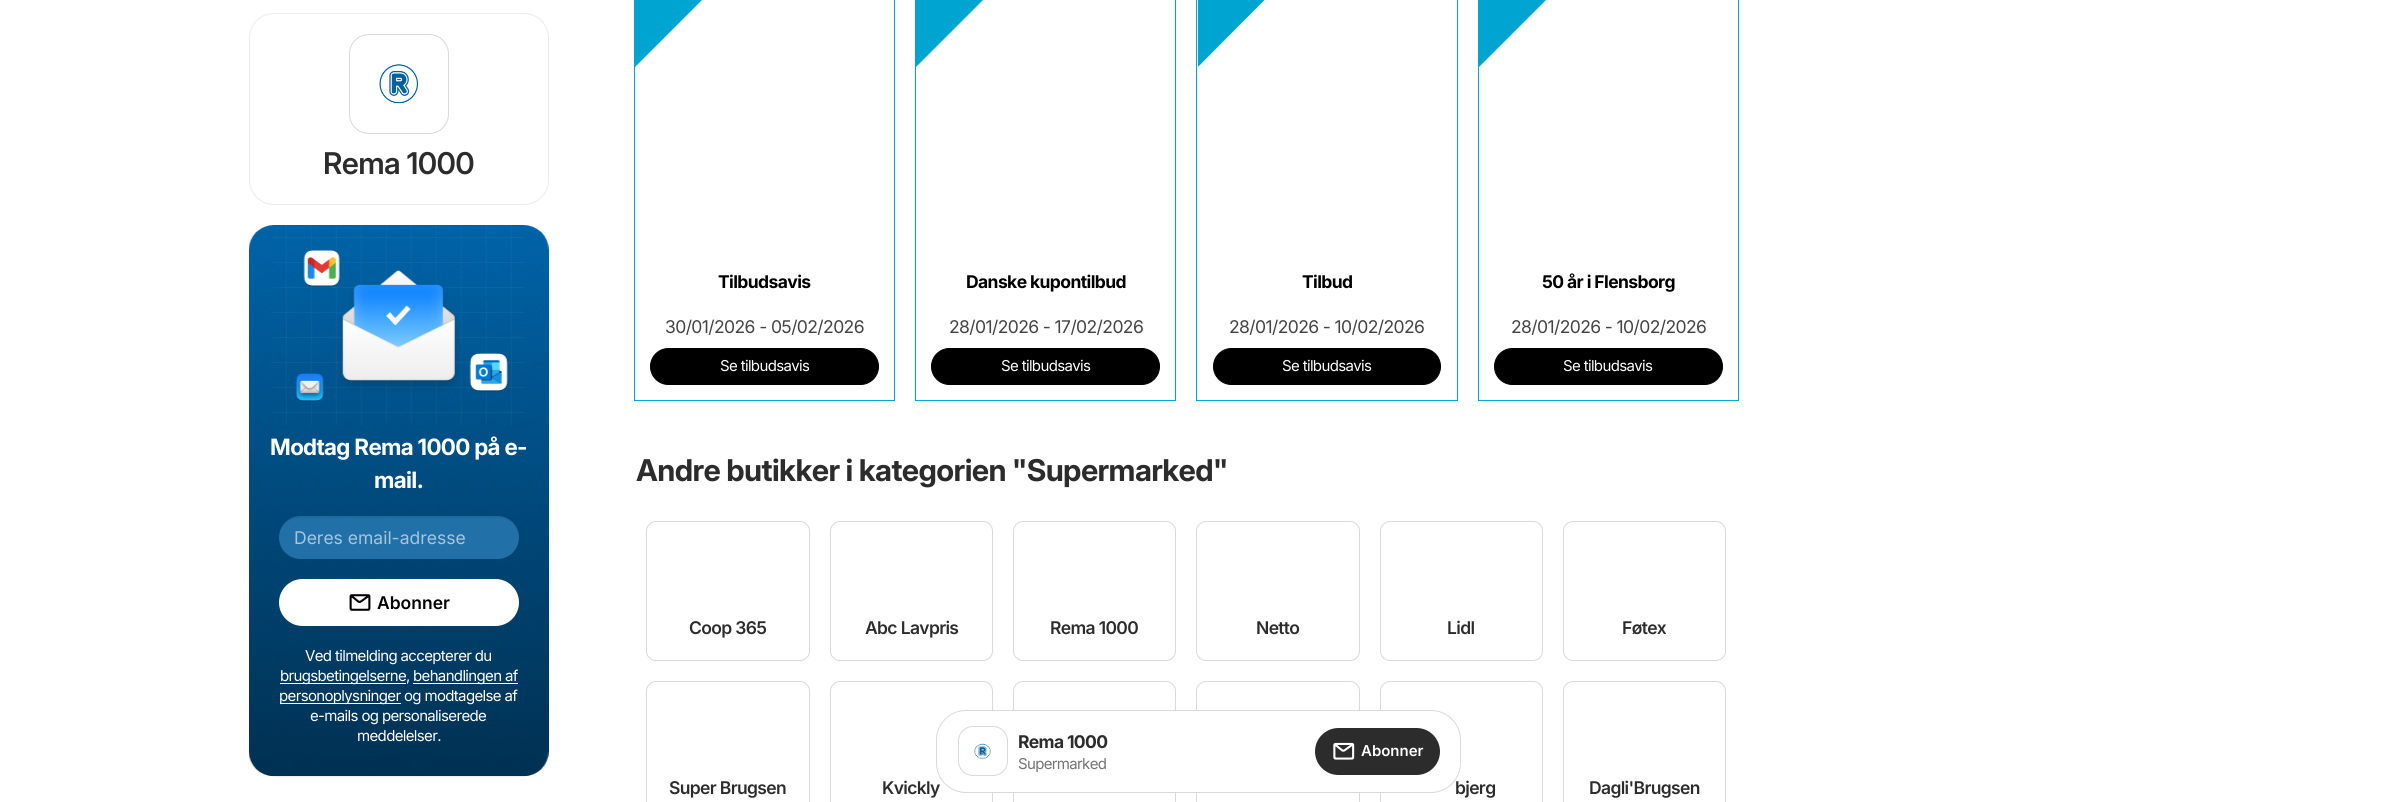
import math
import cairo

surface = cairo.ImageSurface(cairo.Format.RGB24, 2397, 802)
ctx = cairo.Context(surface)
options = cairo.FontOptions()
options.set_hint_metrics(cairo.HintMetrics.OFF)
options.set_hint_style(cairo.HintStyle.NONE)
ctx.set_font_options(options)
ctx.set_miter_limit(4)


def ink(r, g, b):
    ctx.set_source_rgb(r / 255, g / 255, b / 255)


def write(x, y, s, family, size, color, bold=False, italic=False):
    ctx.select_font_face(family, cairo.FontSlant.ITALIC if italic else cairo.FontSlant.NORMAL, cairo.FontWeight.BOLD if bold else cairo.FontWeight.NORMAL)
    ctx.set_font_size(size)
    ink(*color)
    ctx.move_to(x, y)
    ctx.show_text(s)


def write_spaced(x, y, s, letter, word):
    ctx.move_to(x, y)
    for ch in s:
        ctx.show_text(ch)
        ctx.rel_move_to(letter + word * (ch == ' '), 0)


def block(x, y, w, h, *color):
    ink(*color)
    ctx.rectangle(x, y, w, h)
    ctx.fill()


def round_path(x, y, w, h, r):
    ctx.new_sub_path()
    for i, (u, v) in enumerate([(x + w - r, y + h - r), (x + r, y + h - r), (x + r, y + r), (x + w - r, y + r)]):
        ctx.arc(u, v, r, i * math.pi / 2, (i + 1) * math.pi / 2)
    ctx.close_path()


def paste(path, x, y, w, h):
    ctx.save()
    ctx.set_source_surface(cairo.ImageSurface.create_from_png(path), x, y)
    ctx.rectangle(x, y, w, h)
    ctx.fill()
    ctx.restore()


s1 = dict(family="Inter", size=17.5, color=(166, 198, 220))
s2 = dict(family="Inter SemiBold", size=17.5, color=(0, 0, 0))
s3 = dict(family="Inter SemiBold", size=15, color=(255, 255, 255))

ink(255, 255, 255)
ctx.paint()
round_path(249.5, 13.5, 299, 191, 24.5)
ink(235, 235, 235)
ctx.set_line_width(1)
ctx.stroke()
round_path(349.5, 34.5, 99, 99, 19.5)
ink(217, 217, 217)
ctx.stroke()
paste("pic1.png", 379, 63, 41, 41)
ctx.select_font_face("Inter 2 SemiBold")
ctx.set_font_size(30)
ink(44, 44, 44)
write_spaced(323, 174, "Rema 1000", -0.65, 0)
paste("pic2.png", 249, 225, 300, 552)
paste("pic3.png", 273, 225, 252, 200)
ctx.select_font_face("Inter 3", cairo.FontSlant.NORMAL, cairo.FontWeight.BOLD)
ctx.set_font_size(22.5)
ink(255, 255, 255)
write_spaced(270, 455, "Modtag Rema 1000 på e-", -0.65, 0)
write_spaced(374, 488, "mail.", -0.65, 0)
ctx.set_source_rgba(0.157, 0.475, 0.694, 0.83)
round_path(279, 516, 240, 43, 21.5)
ctx.fill()
ctx.set_source_rgba(0, 0, 0, 0.07)
ctx.new_path()
ctx.move_to(300, 518)
ctx.line_to(498, 518)
ctx.curve_to(509, 518, 519, 527, 519, 538)
ctx.curve_to(519, 526, 509, 516, 498, 516)
ctx.line_to(300, 516)
ctx.curve_to(289, 516, 279, 526, 279, 538)
ctx.curve_to(279, 527, 288, 518, 300, 518)
ctx.close_path()
ctx.fill()
write(294, 544, "Deres email-adresse", **s1)
ink(255, 255, 255)
round_path(279, 579, 240, 47, 23.5)
ctx.fill()
paste("pic4.png", 349, 594, 22, 17)
write(377, 609, "Abonner", **s2)
ctx.select_font_face("Inter")
ctx.set_font_size(15)
ink(255, 255, 255)
write_spaced(305, 661, "Ved tilmelding accepterer du", -0.65, 0)
block(280, 683, 126, 1, 255, 255, 255)
write_spaced(280, 681, "brugsbetingelserne,", -0.65, 0)
block(413, 683, 105, 1, 255, 255, 255)
write_spaced(413, 681, "behandlingen af", -0.65, 0)
block(280, 703, 121, 1, 255, 255, 255)
write_spaced(279, 701, "personoplysninger og modtagelse af", -0.65, 0)
write_spaced(310, 721, "e-mails og personaliserede", -0.65, 0)
write_spaced(357, 741, "meddelelser.", -0.65, 0)
ctx.rectangle(634.5, -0.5, 260, 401)
ink(0, 163, 209)
ctx.stroke()
ctx.save()
ctx.rectangle(635, 0, 259, 255)
ctx.clip()
ink(0, 164, 209)
ctx.new_path()
ctx.move_to(522, 4)
ctx.line_to(682, -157)
ctx.line_to(771, -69)
ctx.line_to(610, 92)
ctx.close_path()
ctx.fill()
ctx.restore()
ctx.select_font_face("Inter 2", cairo.FontSlant.NORMAL, cairo.FontWeight.BOLD)
ctx.set_font_size(17.5)
ink(0, 0, 0)
write_spaced(718, 288, "Tilbudsavis", -0.6, 0)
ctx.select_font_face("Inter")
ink(68, 68, 68)
write_spaced(665, 333, "30/01/2026 - 05/02/2026", -0.6, 0)
ink(0, 0, 0)
round_path(650.5, 348.5, 228, 36, 18)
ctx.fill_preserve()
ctx.stroke()
ctx.set_font_size(15)
ink(255, 255, 255)
write_spaced(720, 371, "Se tilbudsavis", -0.65, 0)
ctx.rectangle(915.5, -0.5, 260, 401)
ink(0, 163, 209)
ctx.stroke()
ctx.save()
ctx.rectangle(916, 0, 259, 255)
ctx.clip()
ink(0, 164, 209)
ctx.new_path()
ctx.move_to(803, 4)
ctx.line_to(964, -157)
ctx.line_to(1052, -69)
ctx.line_to(891, 92)
ctx.close_path()
ctx.fill()
ctx.restore()
ctx.select_font_face("Inter 2", cairo.FontSlant.NORMAL, cairo.FontWeight.BOLD)
ctx.set_font_size(17.5)
ink(0, 0, 0)
write_spaced(966, 288, "Danske kupontilbud", -0.6, 0)
ctx.select_font_face("Inter")
ink(68, 68, 68)
write_spaced(949, 333, "28/01/2026 - 17/02/2026", -0.6, 0)
ink(0, 0, 0)
round_path(931.5, 348.5, 228, 36, 18)
ctx.fill_preserve()
ctx.stroke()
ctx.set_font_size(15)
ink(255, 255, 255)
write_spaced(1001, 371, "Se tilbudsavis", -0.65, 0)
ctx.rectangle(1196.5, -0.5, 261, 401)
ink(0, 163, 209)
ctx.stroke()
ctx.save()
ctx.rectangle(1198, 0, 258, 255)
ctx.clip()
ink(0, 164, 209)
ctx.new_path()
ctx.move_to(1084, 4)
ctx.line_to(1245, -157)
ctx.line_to(1333, -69)
ctx.line_to(1173, 92)
ctx.close_path()
ctx.fill()
ctx.restore()
ctx.select_font_face("Inter 2", cairo.FontSlant.NORMAL, cairo.FontWeight.BOLD)
ctx.set_font_size(17.5)
ink(0, 0, 0)
write_spaced(1302, 288, "Tilbud", -0.6, 0)
ctx.select_font_face("Inter")
ink(68, 68, 68)
write_spaced(1229, 333, "28/01/2026 - 10/02/2026", -0.6, 0)
ink(0, 0, 0)
round_path(1213.5, 348.5, 227, 36, 18)
ctx.fill_preserve()
ctx.stroke()
ctx.set_font_size(15)
ink(255, 255, 255)
write_spaced(1282, 371, "Se tilbudsavis", -0.65, 0)
ctx.rectangle(1478.5, -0.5, 260, 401)
ink(0, 163, 209)
ctx.stroke()
ctx.save()
ctx.rectangle(1479, 0, 259, 255)
ctx.clip()
ink(0, 164, 209)
ctx.new_path()
ctx.move_to(1365, 4)
ctx.line_to(1526, -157)
ctx.line_to(1615, -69)
ctx.line_to(1454, 92)
ctx.close_path()
ctx.fill()
ctx.restore()
ctx.select_font_face("Inter 2", cairo.FontSlant.NORMAL, cairo.FontWeight.BOLD)
ctx.set_font_size(17.5)
ink(0, 0, 0)
write_spaced(1542, 288, "50 år i Flensborg", -0.6, 0)
ctx.select_font_face("Inter")
ink(68, 68, 68)
write_spaced(1511, 333, "28/01/2026 - 10/02/2026", -0.6, 0)
ink(0, 0, 0)
round_path(1494.5, 348.5, 228, 36, 18)
ctx.fill_preserve()
ctx.stroke()
ctx.set_font_size(15)
ink(255, 255, 255)
write_spaced(1563, 371, "Se tilbudsavis", -0.65, 0)
ctx.select_font_face("Inter", cairo.FontSlant.NORMAL, cairo.FontWeight.BOLD)
ctx.set_font_size(30)
ink(44, 44, 44)
write_spaced(636, 481, "Andre butikker i kategorien \"Supermarked\"", -0.6, 0)
round_path(646.5, 521.5, 163, 139, 9.5)
ink(217, 217, 217)
ctx.stroke()
ctx.save()
ctx.rectangle(689, 615, 77, 25)
ctx.clip()
ctx.select_font_face("Inter SemiBold")
ctx.set_font_size(17.5)
ink(44, 44, 44)
write_spaced(689, 634, "Coop 365", -0.65, 0)
ctx.restore()
round_path(830.5, 521.5, 162, 139, 9.5)
ctx.stroke()
ctx.select_font_face("Inter SemiBold")
ctx.set_font_size(17.5)
ink(44, 44, 44)
write_spaced(865, 634, "Abc Lavpris", -0.65, 0)
round_path(1013.5, 521.5, 162, 139, 9.5)
ink(217, 217, 217)
ctx.stroke()
ink(44, 44, 44)
write_spaced(1050, 634, "Rema 1000", -0.65, 0)
round_path(1196.5, 521.5, 163, 139, 9.5)
ink(217, 217, 217)
ctx.stroke()
ink(44, 44, 44)
write_spaced(1256, 634, "Netto", -0.65, 0)
round_path(1380.5, 521.5, 162, 139, 9.5)
ink(217, 217, 217)
ctx.stroke()
ink(44, 44, 44)
write_spaced(1447, 634, "Lidl", -0.65, 0)
round_path(1563.5, 521.5, 162, 139, 9.5)
ink(217, 217, 217)
ctx.stroke()
ctx.save()
ctx.rectangle(1623, 615, 43, 25)
ctx.clip()
ink(44, 44, 44)
write_spaced(1622, 634, "Føtex", -0.65, 0)
ctx.restore()
round_path(646.5, 681.5, 163, 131, 9.5)
ctx.stroke()
ink(44, 44, 44)
write_spaced(669, 794, "Super Brugsen", -0.65, 0)
round_path(830.5, 681.5, 162, 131, 9.5)
ink(217, 217, 217)
ctx.stroke()
ink(44, 44, 44)
write_spaced(882, 794, "Kvickly", -0.65, 0)
round_path(1013.5, 681.5, 162, 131, 9.5)
ink(217, 217, 217)
ctx.stroke()
round_path(1196.5, 681.5, 163, 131, 9.5)
ctx.stroke()
round_path(1380.5, 681.5, 162, 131, 9.5)
ctx.stroke()
ink(44, 44, 44)
write_spaced(1455, 794, "bjerg", -0.65, 0)
round_path(1563.5, 681.5, 162, 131, 9.5)
ink(217, 217, 217)
ctx.stroke()
ink(44, 44, 44)
write_spaced(1589, 794, "Dagli'Brugsen", -0.65, 0)
ink(255, 255, 255)
round_path(936, 710, 525, 83, 30)
ctx.fill()
round_path(936.5, 710.5, 524, 82, 29.5)
ctx.set_source_rgba(0, 0, 0, 0.15)
ctx.stroke()
round_path(958.5, 726.5, 49, 49, 14.5)
ink(217, 217, 217)
ctx.stroke()
paste("pic5.png", 974, 743, 17, 17)
ctx.select_font_face("Inter 2", cairo.FontSlant.NORMAL, cairo.FontWeight.BOLD)
ink(44, 44, 44)
write_spaced(1018, 748, "Rema 1000", -0.65, 0)
ctx.select_font_face("Inter")
ctx.set_font_size(15)
ink(115, 115, 115)
write_spaced(1018, 769, "Supermarked", -0.65, 0)
ink(44, 44, 44)
round_path(1315, 728, 125, 47, 23.5)
ctx.fill()
paste("pic6.png", 1333, 742, 22, 18)
write(1361, 756, "Abonner", **s3)
surface.write_to_png("screenshot.png")
